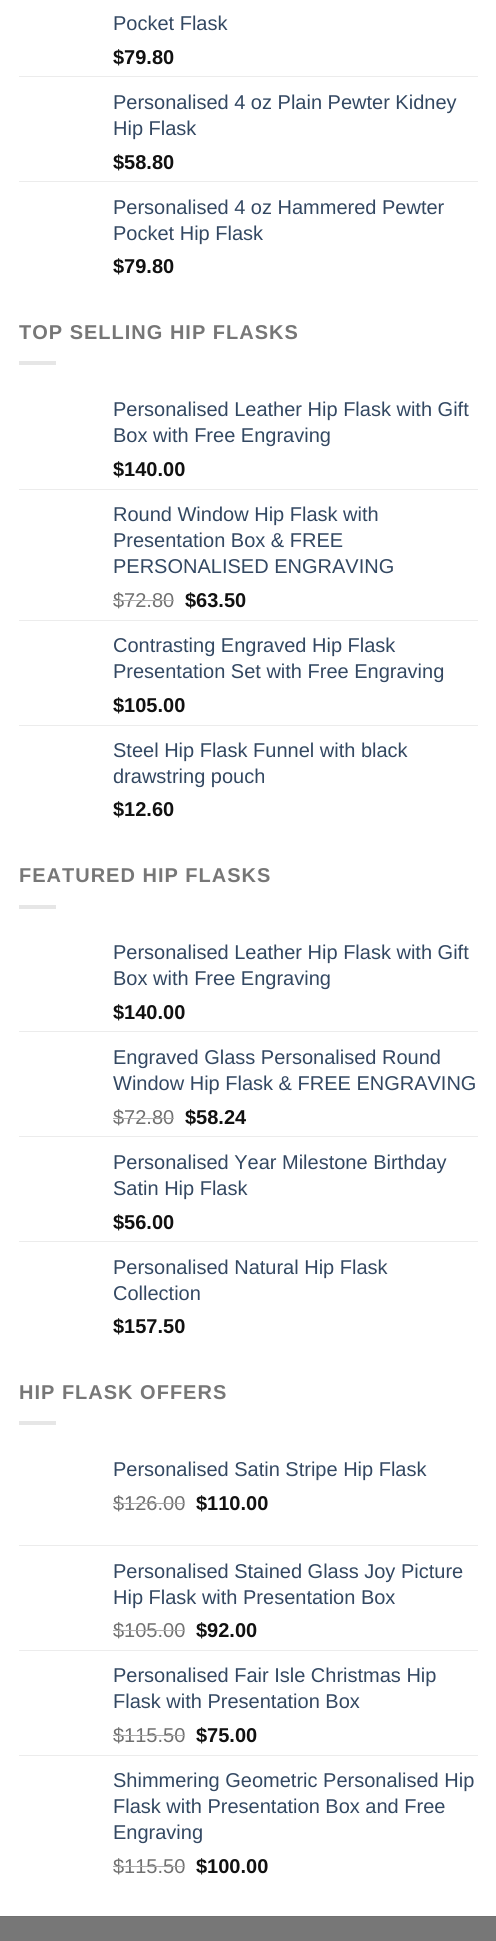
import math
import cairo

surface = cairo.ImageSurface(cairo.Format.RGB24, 496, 1941)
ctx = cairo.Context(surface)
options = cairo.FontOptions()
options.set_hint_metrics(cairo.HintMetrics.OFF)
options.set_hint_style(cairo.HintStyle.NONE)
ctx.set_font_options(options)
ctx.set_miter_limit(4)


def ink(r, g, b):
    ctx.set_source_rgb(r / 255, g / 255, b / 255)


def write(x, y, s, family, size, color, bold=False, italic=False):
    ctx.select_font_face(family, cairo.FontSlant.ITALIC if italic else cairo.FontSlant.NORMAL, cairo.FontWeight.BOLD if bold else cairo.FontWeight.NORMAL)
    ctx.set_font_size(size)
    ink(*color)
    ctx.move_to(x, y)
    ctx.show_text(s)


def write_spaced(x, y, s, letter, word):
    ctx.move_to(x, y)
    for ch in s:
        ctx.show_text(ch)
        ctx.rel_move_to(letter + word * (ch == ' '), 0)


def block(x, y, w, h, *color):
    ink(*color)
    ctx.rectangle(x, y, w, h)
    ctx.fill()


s1 = dict(family="Liberation Sans", size=20, color=(51, 72, 98))
s2 = dict(family="Liberation Sans", size=20, color=(17, 17, 17), bold=True)
s3 = dict(family="Liberation Sans", size=20, color=(112, 112, 112))

ink(255, 255, 255)
ctx.paint()
write(113, 30, "Pocket Flask", **s1)
write(113, 64, "$79.80", **s2)
block(19, 76, 459, 1, 236, 236, 236)
write(113, 109, "Personalised 4 oz Plain Pewter Kidney", **s1)
write(113, 135, "Hip Flask", **s1)
write(113, 169, "$58.80", **s2)
block(19, 181, 459, 1, 236, 236, 236)
write(113, 214, "Personalised 4 oz Hammered Pewter", **s1)
write(113, 240, "Pocket Hip Flask", **s1)
write(113, 273, "$79.80", **s2)
ink(119, 119, 119)
write_spaced(19, 339, "TOP SELLING HIP FLASKS", 1, 0)
block(19, 361, 37, 4, 230, 230, 230)
write(113, 416, "Personalised Leather Hip Flask with Gift", **s1)
write(113, 442, "Box with Free Engraving", **s1)
write(113, 476, "$140.00", **s2)
block(19, 489, 459, 1, 236, 236, 236)
write(113, 521, "Round Window Hip Flask with", **s1)
write(113, 547, "Presentation Box & FREE", **s1)
write(113, 573, "PERSONALISED ENGRAVING", **s1)
write(113, 607, "$72.80", **s3)
block(113, 600, 61, 1, 173, 173, 173)
write(185, 607, "$63.50", **s2)
block(19, 620, 459, 1, 236, 236, 236)
write(113, 652, "Contrasting Engraved Hip Flask", **s1)
write(113, 678, "Presentation Set with Free Engraving", **s1)
write(113, 712, "$105.00", **s2)
block(19, 725, 459, 1, 236, 236, 236)
write(113, 757, "Steel Hip Flask Funnel with black", **s1)
write(113, 783, "drawstring pouch", **s1)
write(113, 816, "$12.60", **s2)
ink(119, 119, 119)
write_spaced(19, 882, "FEATURED HIP FLASKS", 1, 0)
block(19, 905, 37, 4, 230, 230, 230)
write(113, 959, "Personalised Leather Hip Flask with Gift", **s1)
write(113, 985, "Box with Free Engraving", **s1)
write(113, 1019, "$140.00", **s2)
block(19, 1031, 459, 1, 236, 236, 236)
write(113, 1064, "Engraved Glass Personalised Round", **s1)
write(113, 1090, "Window Hip Flask & FREE ENGRAVING", **s1)
write(113, 1124, "$72.80", **s3)
block(113, 1118, 61, 1, 173, 173, 173)
write(185, 1124, "$58.24", **s2)
block(19, 1136, 459, 1, 236, 236, 236)
write(113, 1169, "Personalised Year Milestone Birthday", **s1)
write(113, 1195, "Satin Hip Flask", **s1)
write(113, 1229, "$56.00", **s2)
block(19, 1241, 459, 1, 236, 236, 236)
write(113, 1274, "Personalised Natural Hip Flask", **s1)
write(113, 1300, "Collection", **s1)
write(113, 1333, "$157.50", **s2)
ink(119, 119, 119)
write_spaced(19, 1399, "HIP FLASK OFFERS", 1, 0)
block(19, 1421, 37, 4, 230, 230, 230)
write(113, 1476, "Personalised Satin Stripe Hip Flask", **s1)
write(113, 1510, "$126.00", **s3)
block(113, 1503, 72, 1, 173, 173, 173)
write(196, 1510, "$110.00", **s2)
block(19, 1545, 459, 1, 236, 236, 236)
write(113, 1578, "Personalised Stained Glass Joy Picture", **s1)
write(113, 1604, "Hip Flask with Presentation Box", **s1)
write(113, 1637, "$105.00", **s3)
block(113, 1630, 72, 1, 173, 173, 173)
write(196, 1637, "$92.00", **s2)
block(19, 1650, 459, 1, 236, 236, 236)
write(113, 1682, "Personalised Fair Isle Christmas Hip", **s1)
write(113, 1708, "Flask with Presentation Box", **s1)
write(113, 1742, "$115.50", **s3)
block(113, 1735, 72, 1, 173, 173, 173)
write(196, 1742, "$75.00", **s2)
block(19, 1755, 459, 1, 236, 236, 236)
write(113, 1787, "Shimmering Geometric Personalised Hip", **s1)
write(113, 1813, "Flask with Presentation Box and Free", **s1)
write(113, 1839, "Engraving", **s1)
write(113, 1873, "$115.50", **s3)
block(113, 1866, 72, 1, 173, 173, 173)
write(196, 1873, "$100.00", **s2)
block(0, 1917, 496, 24, 119, 119, 119)
block(0, 1916, 496, 1, 113, 113, 113)
surface.write_to_png("screenshot.png")
